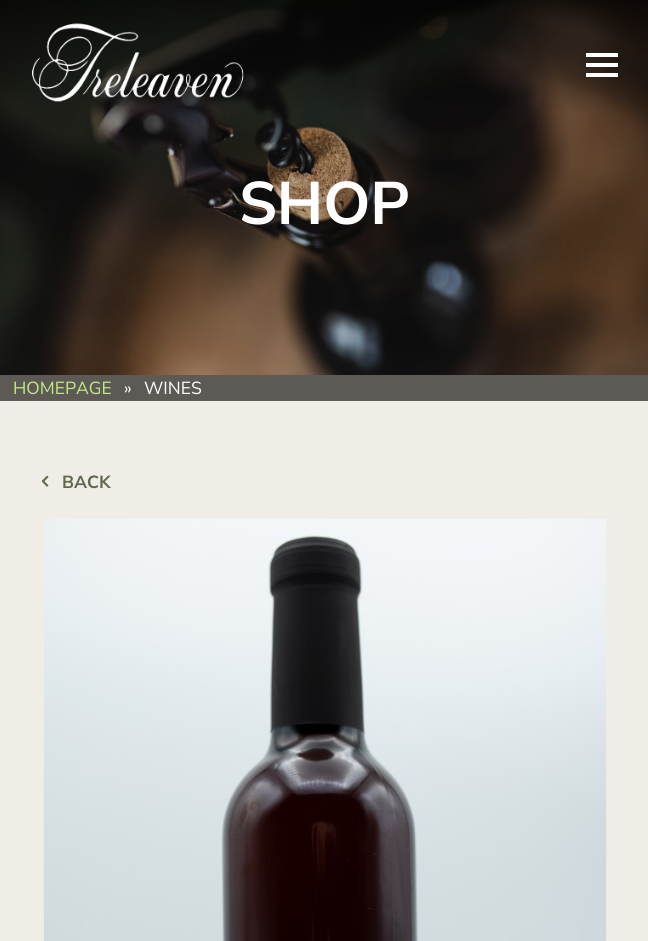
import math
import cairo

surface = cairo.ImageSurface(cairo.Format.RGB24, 648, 941)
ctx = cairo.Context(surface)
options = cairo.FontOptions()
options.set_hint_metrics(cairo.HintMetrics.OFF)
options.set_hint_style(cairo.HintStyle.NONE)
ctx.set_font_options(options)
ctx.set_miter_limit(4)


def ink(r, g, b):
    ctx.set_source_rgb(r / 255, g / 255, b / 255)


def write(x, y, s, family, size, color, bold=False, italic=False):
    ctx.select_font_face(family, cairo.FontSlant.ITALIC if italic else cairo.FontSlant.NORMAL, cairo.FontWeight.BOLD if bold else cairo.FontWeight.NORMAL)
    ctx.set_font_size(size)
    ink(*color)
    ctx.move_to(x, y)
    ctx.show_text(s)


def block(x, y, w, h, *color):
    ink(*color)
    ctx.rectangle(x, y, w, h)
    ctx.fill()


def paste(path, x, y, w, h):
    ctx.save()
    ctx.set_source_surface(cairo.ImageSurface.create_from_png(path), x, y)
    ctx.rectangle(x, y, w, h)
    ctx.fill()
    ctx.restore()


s1 = dict(family="Nunito Sans", size=60, color=(255, 255, 255), bold=True)
s2 = dict(family="Nunito Sans", size=17.5, color=(195, 233, 133))
s3 = dict(family="Nunito Sans", size=17.5, color=(255, 255, 255))
s4 = dict(family="Nunito Sans", size=17.5, color=(94, 105, 76), bold=True)

ink(240, 237, 231)
ctx.paint()
paste("pic2.png", 0, 0, 648, 375)
paste("pic1.png", 32, 23, 212, 79)
block(586, 63, 32, 4, 255, 255, 255)
block(586, 53, 32, 4, 255, 255, 255)
block(586, 73, 32, 4, 255, 255, 255)
write(239, 224, "SHOP", **s1)
block(0, 375, 648, 26, 93, 90, 86)
write(13, 394, "HOMEPAGE", **s2)
write(124, 394, "»", **s3)
write(144, 394, "WINES", **s3)
paste("pic3.png", 41, 475, 8, 12)
write(62, 488, "BACK", **s4)
paste("pic4.png", 43, 518, 564, 423)
surface.write_to_png("screenshot.png")
